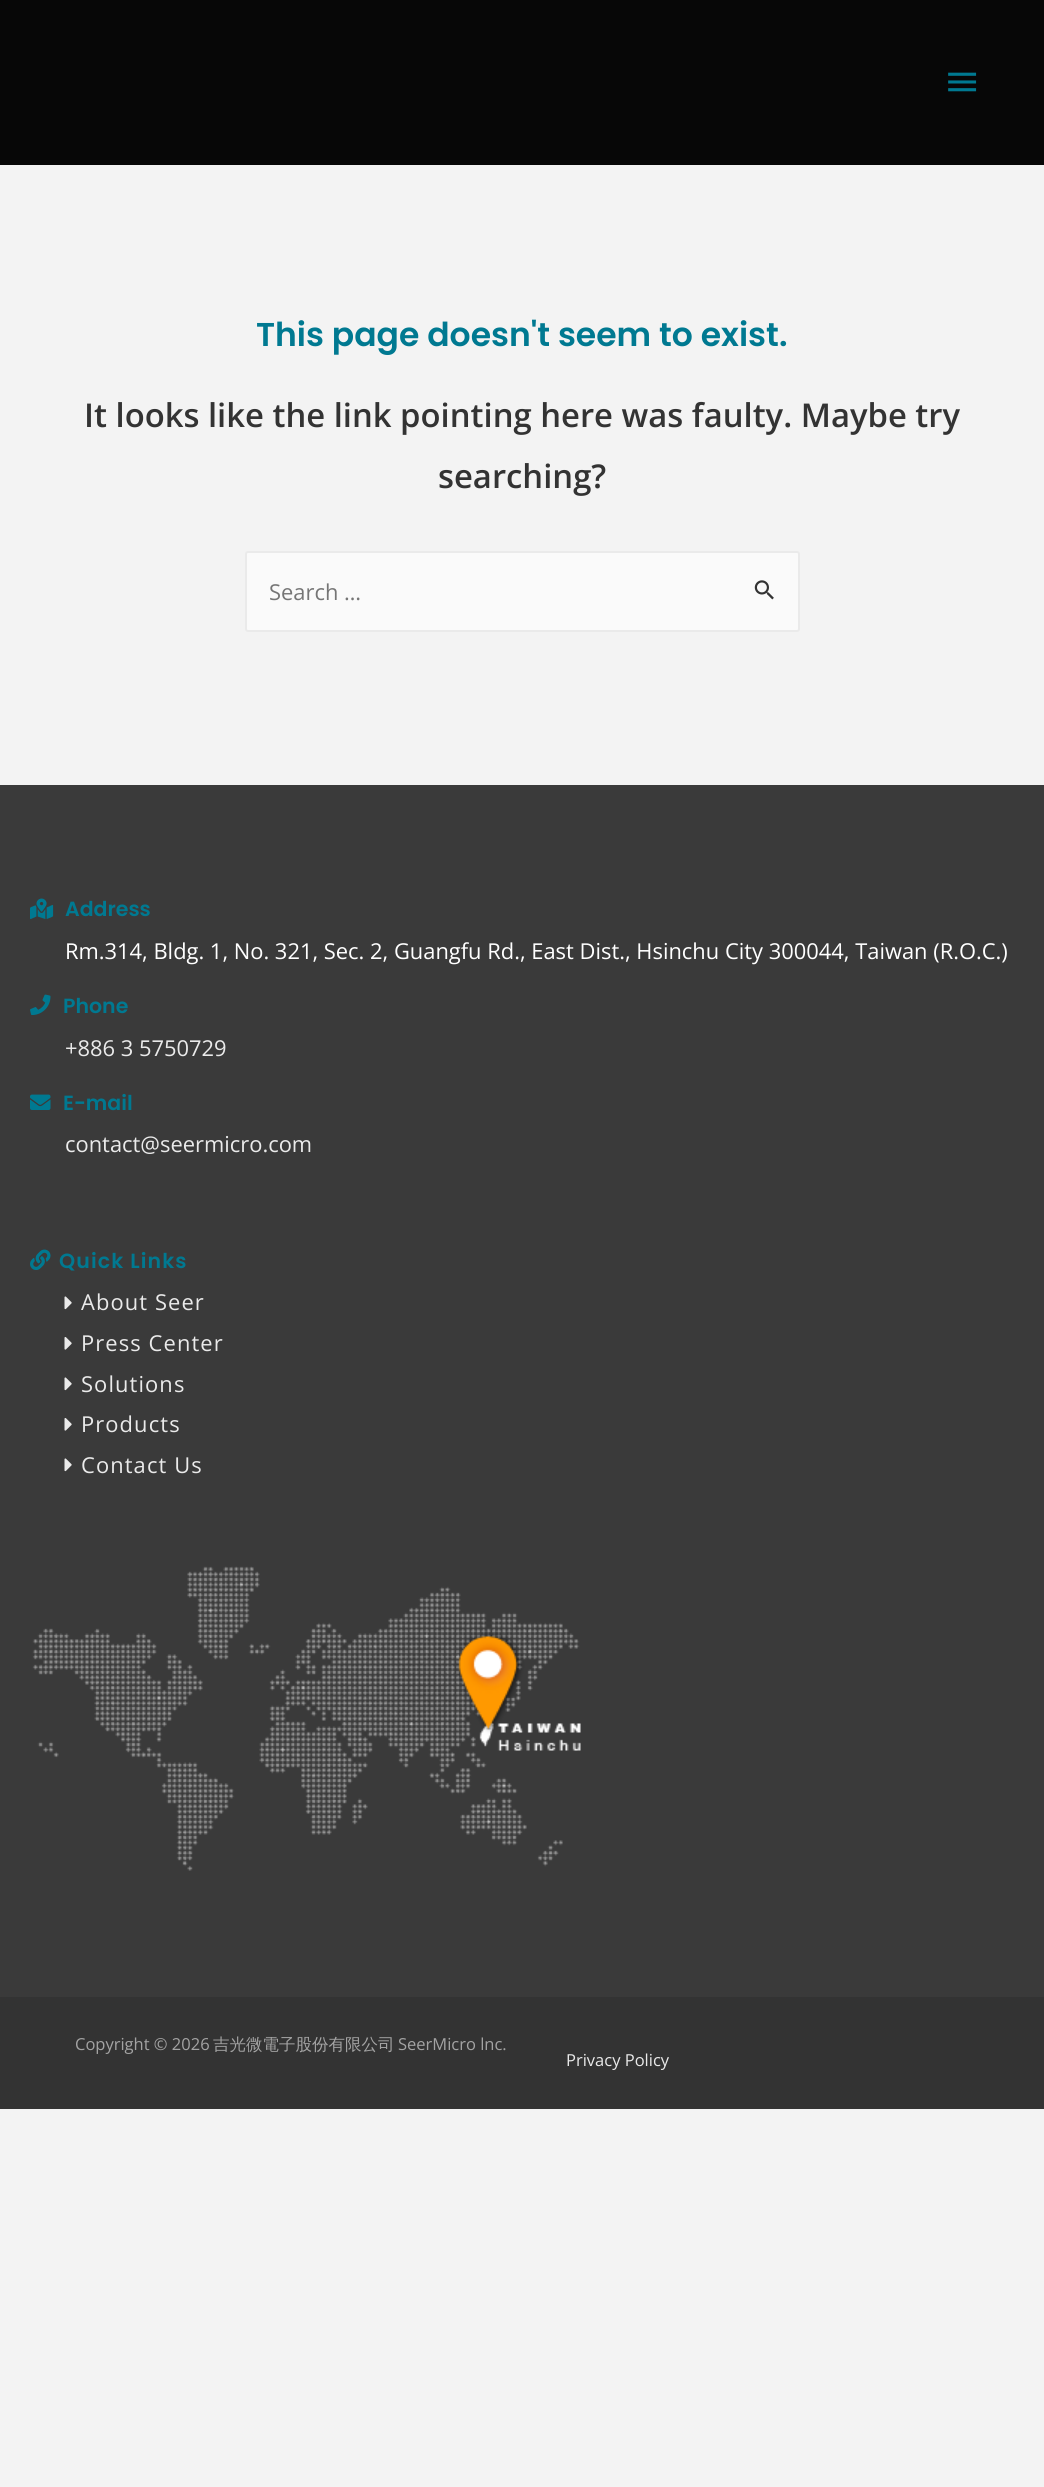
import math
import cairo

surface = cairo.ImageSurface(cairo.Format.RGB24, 1044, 2487)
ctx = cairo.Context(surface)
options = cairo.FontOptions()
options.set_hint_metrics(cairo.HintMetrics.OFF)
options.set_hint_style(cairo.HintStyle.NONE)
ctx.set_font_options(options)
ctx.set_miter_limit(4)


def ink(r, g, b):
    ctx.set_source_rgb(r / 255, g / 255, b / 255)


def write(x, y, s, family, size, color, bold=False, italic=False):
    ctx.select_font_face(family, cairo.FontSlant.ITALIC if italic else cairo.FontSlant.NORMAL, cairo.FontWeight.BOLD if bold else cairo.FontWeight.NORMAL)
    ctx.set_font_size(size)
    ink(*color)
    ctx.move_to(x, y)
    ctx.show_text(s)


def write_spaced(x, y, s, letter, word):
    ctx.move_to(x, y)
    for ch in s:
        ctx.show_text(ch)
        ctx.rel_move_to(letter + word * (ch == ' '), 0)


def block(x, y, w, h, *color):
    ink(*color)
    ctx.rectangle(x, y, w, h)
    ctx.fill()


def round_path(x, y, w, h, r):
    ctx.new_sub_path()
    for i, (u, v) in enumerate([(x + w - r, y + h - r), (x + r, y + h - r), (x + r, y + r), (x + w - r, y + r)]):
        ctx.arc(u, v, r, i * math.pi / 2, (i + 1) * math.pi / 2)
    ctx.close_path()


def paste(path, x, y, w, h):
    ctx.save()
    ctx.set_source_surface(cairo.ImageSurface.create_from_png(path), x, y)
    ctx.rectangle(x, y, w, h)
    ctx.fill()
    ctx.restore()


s1 = dict(family="Poppins SemiBold", size=33, color=(0, 121, 145))
s2 = dict(family="Open Sans SemiBold", size=32.8, color=(51, 51, 51))
s3 = dict(family="Open Sans", size=21.9, color=(117, 117, 117))
s4 = dict(family="Poppins SemiBold", size=20.5, color=(0, 121, 145))
s5 = dict(family="Open Sans", size=21.9, color=(255, 255, 255))
s6 = dict(family="Open Sans", size=21.9, color=(234, 234, 234))
s7 = dict(family="Open Sans", size=16.5, color=(163, 163, 163))
s8 = dict(family="WenQuanYi Zen Hei Medium", size=16.5, color=(163, 163, 163))
s9 = dict(family="Open Sans", size=16.5, color=(234, 234, 234))

ink(243, 243, 243)
ctx.paint()
block(0, 0, 1044, 165, 7, 7, 7)
paste("pic1.png", 948, 72, 29, 20)
write(256, 346, "This page doesn't seem to exist.", **s1)
write(84, 427, "It looks like the link pointing here was faulty. Maybe try", **s2)
write(438, 488, "searching?", **s2)
ink(250, 250, 250)
round_path(246, 552, 553, 79, 2)
ctx.fill_preserve()
ink(234, 234, 234)
ctx.stroke()
write(269, 600, "Search …", **s3)
paste("pic2.png", 754, 580, 20, 20)
block(0, 785, 1044, 1212, 58, 58, 58)
paste("pic3.png", 30, 898, 24, 21)
write(65, 916, "Address", **s4)
write(65, 959, "Rm.314, Bldg. 1, No. 321, Sec. 2, Guangfu Rd., East Dist., Hsinchu City 300044, Taiwan (R.O.C.)", **s5)
paste("pic4.png", 30, 994, 21, 21)
write(63, 1013, "Phone", **s4)
write(65, 1056, "+886 3 5750729", **s6)
paste("pic5.png", 30, 1094, 21, 16)
write(63, 1110, "E-mail", **s4)
write(65, 1152, "contact@seermicro.com", **s6)
paste("pic6.png", 30, 1249, 21, 21)
ctx.select_font_face("Poppins SemiBold")
ctx.set_font_size(20.5)
ink(0, 121, 145)
write_spaced(59, 1268, "Quick Links", 1.1, 0)
paste("pic7.png", 64, 1296, 8, 14)
ctx.select_font_face("Open Sans")
ctx.set_font_size(21.9)
ink(234, 234, 234)
write_spaced(81, 1310, "About Seer", 1.1, 0)
paste("pic8.png", 64, 1337, 8, 13)
write_spaced(81, 1351, "Press Center", 1.1, 0)
paste("pic7.png", 64, 1377, 8, 14)
write_spaced(81, 1392, "Solutions", 1.1, 0)
paste("pic8.png", 64, 1418, 8, 13)
write_spaced(81, 1432, "Products", 1.1, 0)
paste("pic7.png", 64, 1458, 8, 14)
write_spaced(81, 1473, "Contact Us", 1.1, 0)
paste("pic9.png", 32, 1566, 549, 305)
block(0, 1997, 1044, 112, 51, 51, 51)
write(75, 2050, "Copyright © 2026", **s7)
write(213, 2050, "吉光微電子股份有限公司", **s8)
write(398, 2050, "SeerMicro lnc.", **s7)
write(566, 2066, "Privacy Policy", **s9)
surface.write_to_png("screenshot.png")
